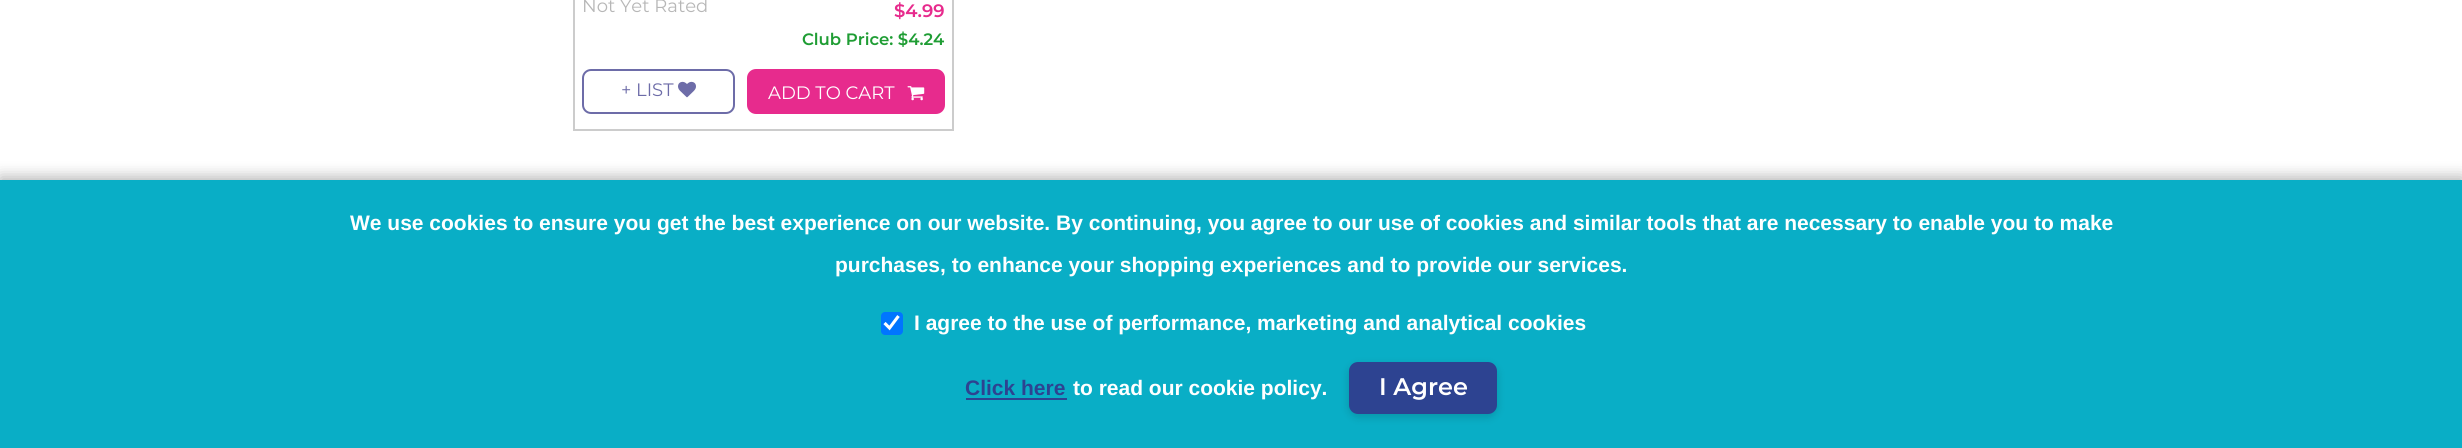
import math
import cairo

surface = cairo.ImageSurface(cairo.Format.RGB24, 2462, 448)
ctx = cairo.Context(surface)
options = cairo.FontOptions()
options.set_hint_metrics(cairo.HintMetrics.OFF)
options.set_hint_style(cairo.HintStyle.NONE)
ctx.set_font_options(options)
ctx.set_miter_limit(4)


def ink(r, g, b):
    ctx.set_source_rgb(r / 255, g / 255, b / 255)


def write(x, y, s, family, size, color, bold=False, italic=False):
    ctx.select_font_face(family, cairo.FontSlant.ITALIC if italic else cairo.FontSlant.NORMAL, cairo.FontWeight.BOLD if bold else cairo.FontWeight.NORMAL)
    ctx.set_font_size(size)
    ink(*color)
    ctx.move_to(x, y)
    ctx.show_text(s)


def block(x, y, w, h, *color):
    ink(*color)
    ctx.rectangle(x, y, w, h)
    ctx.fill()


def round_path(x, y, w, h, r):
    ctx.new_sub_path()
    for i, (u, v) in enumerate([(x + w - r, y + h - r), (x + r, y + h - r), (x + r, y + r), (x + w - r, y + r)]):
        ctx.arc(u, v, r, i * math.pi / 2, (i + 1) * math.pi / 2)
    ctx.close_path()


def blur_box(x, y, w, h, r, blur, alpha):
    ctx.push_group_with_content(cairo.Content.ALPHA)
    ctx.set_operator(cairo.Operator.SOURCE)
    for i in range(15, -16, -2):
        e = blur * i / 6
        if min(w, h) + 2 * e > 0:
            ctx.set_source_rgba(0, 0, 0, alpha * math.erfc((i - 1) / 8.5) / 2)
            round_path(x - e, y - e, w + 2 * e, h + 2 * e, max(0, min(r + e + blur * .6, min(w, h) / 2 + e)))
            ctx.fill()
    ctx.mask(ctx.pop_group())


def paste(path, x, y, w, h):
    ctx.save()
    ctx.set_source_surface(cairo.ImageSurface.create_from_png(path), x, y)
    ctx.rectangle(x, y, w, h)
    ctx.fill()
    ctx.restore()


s1 = dict(family="Montserrat", size=18, color=(183, 183, 183))
s2 = dict(family="Montserrat SemiBold", size=18, color=(231, 43, 141))
s3 = dict(family="Montserrat SemiBold", size=16.5, color=(31, 157, 52))
s4 = dict(family="Montserrat", size=18, color=(109, 108, 168))
s5 = dict(family="Montserrat", size=18, color=(255, 255, 255))
s6 = dict(family="Liberation Sans", size=21, color=(255, 255, 255), bold=True)
s7 = dict(family="Liberation Sans", size=21, color=(45, 67, 145), bold=True)
s8 = dict(family="Montserrat SemiBold", size=24, color=(255, 255, 255))

ink(255, 255, 255)
ctx.paint()
ctx.rectangle(574, -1, 379, 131)
ink(204, 204, 204)
ctx.stroke()
write(582, 12, "Not Yet Rated", **s1)
write(894, 17, "$4.99", **s2)
write(802, 45, "Club Price: $4.24", **s3)
round_path(583, 70, 151, 43, 8)
ink(109, 108, 168)
ctx.stroke()
write(621, 96, "+ LIST", **s4)
paste("pic1.png", 678, 81, 18, 17)
ink(231, 43, 141)
round_path(748, 70, 196, 43, 8)
ctx.fill_preserve()
ctx.stroke()
write(768, 99, "ADD TO CART", **s5)
paste("pic2.png", 907, 86, 18, 15)
ink(0, 0, 0)
blur_box(0, 177, 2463, 269, 0, 7.5, 0.3)
block(0, 180, 2462, 268, 9, 174, 198)
write(350, 230, "We use cookies to ensure you get the best experience on our website. By continuing, you agree to our use of cookies and similar tools that are necessary to enable you to make", **s6)
write(835, 272, "purchases, to enhance your shopping experiences and to provide our services.", **s6)
ink(0, 117, 255)
round_path(881, 312, 22, 23, 4)
ctx.fill()
ctx.new_path()
ctx.move_to(884.5, 323)
ctx.line_to(889.5, 328)
ctx.line_to(898.5, 316)
ink(255, 255, 255)
ctx.set_line_width(3.1)
ctx.stroke()
write(914, 330, "I agree to the use of performance, marketing and analytical cookies", **s6)
write(965, 395, "Click here", **s7)
block(966, 398, 101, 2, 45, 67, 145)
write(1073, 395, "to read our cookie policy.", **s6)
ink(0, 0, 0)
blur_box(1349, 365, 148, 52, 9, 4.5, 0.15)
ink(45, 67, 145)
round_path(1349, 362, 148, 52, 9)
ctx.fill()
write(1379, 395, "I Agree", **s8)
surface.write_to_png("screenshot.png")
